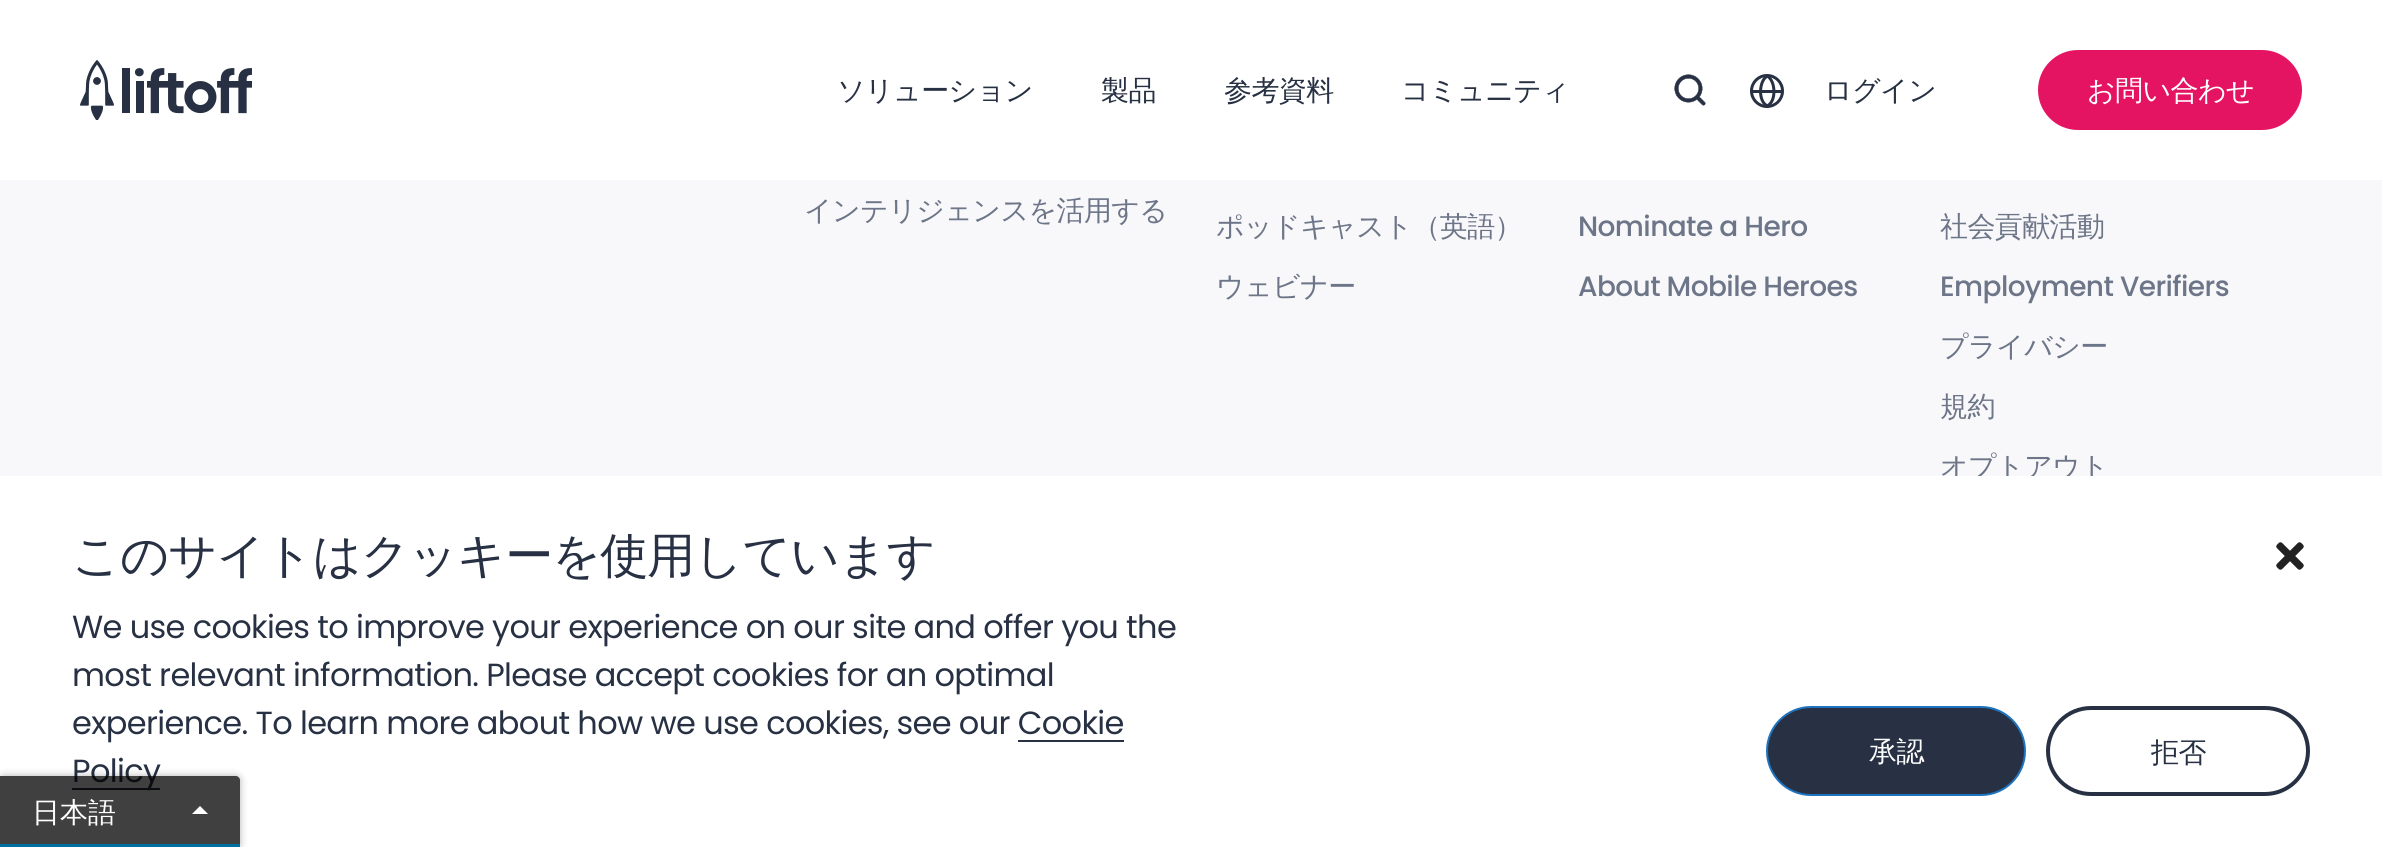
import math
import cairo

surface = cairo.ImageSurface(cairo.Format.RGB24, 2382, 847)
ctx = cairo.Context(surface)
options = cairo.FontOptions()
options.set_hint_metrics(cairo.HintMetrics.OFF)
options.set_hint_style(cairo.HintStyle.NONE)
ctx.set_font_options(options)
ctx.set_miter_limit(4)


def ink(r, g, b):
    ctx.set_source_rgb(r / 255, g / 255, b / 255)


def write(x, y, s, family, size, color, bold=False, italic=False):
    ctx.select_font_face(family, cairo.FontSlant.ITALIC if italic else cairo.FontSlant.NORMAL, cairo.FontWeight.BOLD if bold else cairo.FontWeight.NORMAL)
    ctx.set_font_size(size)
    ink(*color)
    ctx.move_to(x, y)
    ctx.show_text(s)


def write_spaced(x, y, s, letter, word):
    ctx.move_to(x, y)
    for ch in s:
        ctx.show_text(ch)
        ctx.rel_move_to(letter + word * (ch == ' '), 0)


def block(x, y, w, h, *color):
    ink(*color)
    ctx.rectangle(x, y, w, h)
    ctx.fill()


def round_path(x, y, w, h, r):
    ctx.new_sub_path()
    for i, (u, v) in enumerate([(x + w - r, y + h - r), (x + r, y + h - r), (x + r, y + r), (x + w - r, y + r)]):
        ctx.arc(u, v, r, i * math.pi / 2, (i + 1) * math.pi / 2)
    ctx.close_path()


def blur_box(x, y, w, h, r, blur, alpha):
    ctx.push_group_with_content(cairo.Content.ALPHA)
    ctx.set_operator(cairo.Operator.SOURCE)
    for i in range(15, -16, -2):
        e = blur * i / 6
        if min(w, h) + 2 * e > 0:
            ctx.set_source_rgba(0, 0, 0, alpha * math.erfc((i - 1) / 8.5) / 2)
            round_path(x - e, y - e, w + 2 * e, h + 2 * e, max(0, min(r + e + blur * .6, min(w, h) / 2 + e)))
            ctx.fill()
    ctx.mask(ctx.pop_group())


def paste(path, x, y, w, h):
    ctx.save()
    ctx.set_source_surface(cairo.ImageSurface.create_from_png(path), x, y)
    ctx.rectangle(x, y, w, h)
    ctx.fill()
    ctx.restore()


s1 = dict(family="WenQuanYi Zen Hei Medium", size=28, color=(255, 255, 255))

ink(248, 248, 250)
ctx.paint()
block(0, 0, 2382, 180, 255, 255, 255)
paste("pic1.png", 80, 60, 172, 60)
ctx.select_font_face("WenQuanYi Zen Hei Medium")
ctx.set_font_size(28)
ink(39, 49, 67)
write_spaced(837, 100, "ソリューション", -0.6, 0)
write_spaced(1101, 100, "製品", -0.6, 0)
write_spaced(1224, 100, "参考資料", -0.6, 0)
write_spaced(1401, 100, "コミュニティ", -0.6, 0)
paste("pic2.png", 1674, 74, 32, 32)
ctx.arc(1767, 91, 15.5, 0, 2 * math.pi)
ctx.set_line_width(3)
ctx.stroke()
ctx.new_path()
ctx.move_to(1767.5, 76)
ctx.curve_to(1759, 80, 1757.5, 101.5, 1767.5, 106)
ctx.move_to(1767, 76)
ctx.curve_to(1775.5, 80, 1777, 101.5, 1767, 106)
ctx.set_line_cap(cairo.LineCap.ROUND)
ctx.set_line_join(cairo.LineJoin.ROUND)
ctx.stroke()
block(1753, 90, 29, 3, 39, 49, 67)
write_spaced(1824, 100, "ログイン", -0.6, 0)
ink(229, 20, 98)
round_path(2038, 50, 264, 80, 40)
ctx.fill()
ink(255, 255, 255)
write_spaced(2087, 100, "お問い合わせ", -0.6, 0)
ink(109, 117, 136)
write_spaced(804, 220, "インテリジェンスを活用する", -0.6, 0)
write_spaced(1216, 236, "ポッドキャスト（英語）", -0.6, 0)
write_spaced(1216, 296, "ウェビナー", -0.6, 0)
ctx.select_font_face("Poppins Medium")
write_spaced(1578, 236, "Nominate a Hero", -0.6, 0)
write_spaced(1578, 296, "About Mobile Heroes", -0.6, 0)
ctx.select_font_face("WenQuanYi Zen Hei Medium")
write_spaced(1940, 236, "社会貢献活動", -0.6, 0)
ctx.select_font_face("Poppins Medium")
write_spaced(1940, 296, "Employment Verifiers", -0.6, 0)
ctx.select_font_face("WenQuanYi Zen Hei Medium")
write_spaced(1940, 356, "プライバシー", -0.6, 0)
write_spaced(1940, 416, "規約", -0.6, 0)
write_spaced(1940, 476, "オプトアウト", -0.6, 0)
block(0, 476, 2382, 371, 255, 255, 255)
ctx.set_font_size(48)
ink(39, 49, 67)
write_spaced(72, 572, "このサイトはクッキーを使用しています", -1, 0)
paste("pic3.png", 2276, 542, 28, 28)
ctx.select_font_face("Poppins")
ctx.set_font_size(32)
write_spaced(72, 638, "We use cookies to improve your experience on our site and offer you the", -0.65, 0)
write_spaced(72, 686, "most relevant information. Please accept cookies for an optimal", -0.65, 0)
write_spaced(72, 734, "experience. To learn more about how we use cookies, see our Cookie", -0.65, 0)
block(72, 788, 88, 2, 39, 49, 67)
write_spaced(72, 782, "Policy", -0.65, 0)
block(1018, 740, 106, 2, 39, 49, 67)
round_path(1767, 707, 258, 88, 44)
ctx.fill_preserve()
ink(30, 115, 190)
ctx.set_line_width(2)
ctx.set_line_cap(cairo.LineCap.BUTT)
ctx.set_line_join(cairo.LineJoin.MITER)
ctx.stroke()
ctx.select_font_face("WenQuanYi Zen Hei Medium")
ctx.set_font_size(28)
ink(255, 255, 255)
write_spaced(1869, 761, "承認", -0.6, 0)
round_path(2048, 708, 260, 86, 43)
ink(39, 49, 67)
ctx.set_line_width(4)
ctx.stroke()
write_spaced(2151, 762, "拒否", -0.6, 0)
ctx.save()
ctx.set_fill_rule(cairo.FillRule.EVEN_ODD)
ctx.new_path()
ctx.move_to(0, 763)
ctx.line_to(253, 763)
ctx.line_to(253, 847)
ctx.line_to(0, 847)
ctx.close_path()
ctx.move_to(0, 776)
ctx.line_to(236, 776)
ctx.curve_to(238, 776, 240, 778, 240, 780)
ctx.line_to(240, 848)
ctx.line_to(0, 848)
ctx.close_path()
ctx.clip()
ink(0, 0, 0)
blur_box(0, 776, 240, 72, 4, 4, 0.3)
ctx.restore()
ctx.set_source_rgba(0, 0, 0, 0.75)
ctx.new_path()
ctx.move_to(0, 776)
ctx.line_to(236, 776)
ctx.curve_to(238, 776, 240, 778, 240, 780)
ctx.line_to(240, 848)
ctx.line_to(0, 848)
ctx.close_path()
ctx.fill()
block(0, 844, 240, 3, 0, 111, 159)
write(32, 822, "日本語", **s1)
ctx.new_path()
ctx.move_to(208, 814)
ctx.line_to(192, 814)
ctx.line_to(200, 806)
ctx.close_path()
ctx.fill()
surface.write_to_png("screenshot.png")
